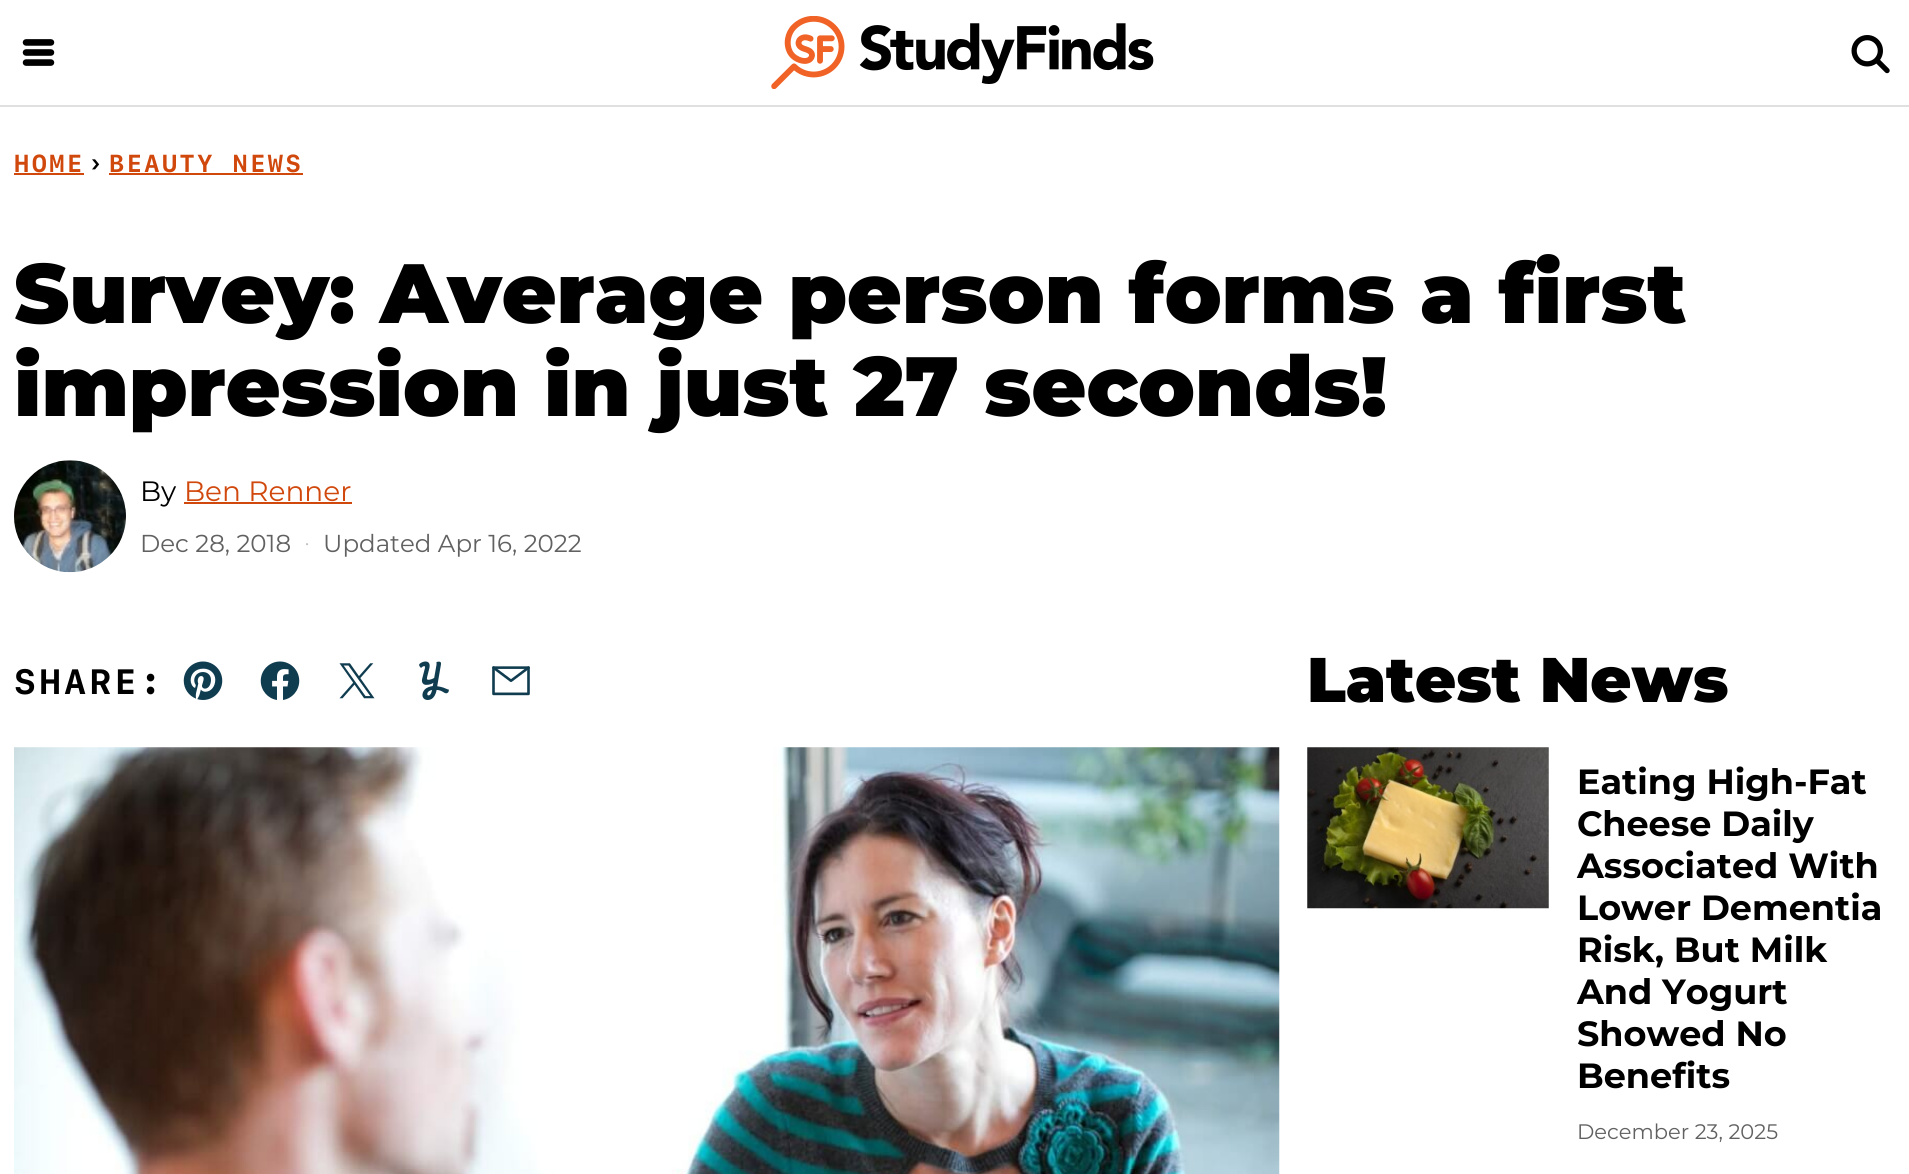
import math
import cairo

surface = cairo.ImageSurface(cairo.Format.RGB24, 1909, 1174)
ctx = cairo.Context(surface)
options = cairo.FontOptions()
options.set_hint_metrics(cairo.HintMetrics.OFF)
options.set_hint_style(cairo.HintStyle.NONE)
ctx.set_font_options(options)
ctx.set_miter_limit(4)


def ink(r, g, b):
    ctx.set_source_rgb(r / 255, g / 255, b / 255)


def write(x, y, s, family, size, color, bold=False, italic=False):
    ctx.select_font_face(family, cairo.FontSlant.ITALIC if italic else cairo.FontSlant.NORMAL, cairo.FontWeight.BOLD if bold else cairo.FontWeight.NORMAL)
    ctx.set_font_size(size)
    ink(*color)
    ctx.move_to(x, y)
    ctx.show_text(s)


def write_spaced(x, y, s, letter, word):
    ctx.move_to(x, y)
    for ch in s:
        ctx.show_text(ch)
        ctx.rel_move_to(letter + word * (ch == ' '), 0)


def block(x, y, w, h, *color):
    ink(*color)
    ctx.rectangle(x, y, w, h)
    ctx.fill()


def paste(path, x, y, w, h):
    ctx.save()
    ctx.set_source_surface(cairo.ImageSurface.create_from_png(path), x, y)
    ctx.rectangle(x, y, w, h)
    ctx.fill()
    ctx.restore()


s1 = dict(family="Montserrat Black", size=84, color=(0, 0, 0))
s2 = dict(family="Montserrat", size=28, color=(0, 0, 0))
s3 = dict(family="Montserrat", size=28, color=(209, 72, 13))
s4 = dict(family="Montserrat", size=24.5, color=(97, 97, 97))
s5 = dict(family="Montserrat", size=14, color=(189, 189, 189))
s6 = dict(family="Montserrat Black", size=63, color=(0, 0, 0))
s7 = dict(family="Montserrat", size=35, color=(0, 0, 0), bold=True)
s8 = dict(family="Montserrat", size=21, color=(97, 97, 97))

ink(255, 255, 255)
ctx.paint()
block(0, 105, 1909, 2, 224, 224, 224)
paste("pic1.png", 22, 39, 33, 27)
paste("pic2.png", 771, 16, 383, 73)
paste("pic3.png", 1851, 35, 39, 39)
ctx.select_font_face("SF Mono", cairo.FontSlant.NORMAL, cairo.FontWeight.BOLD)
ctx.set_font_size(24.5)
ink(209, 72, 13)
write_spaced(14, 172, "HOME", 2.5, 0)
block(14, 173, 70, 2, 209, 72, 13)
ink(0, 0, 0)
write_spaced(88, 172, "›", 2.5, 0)
ink(209, 72, 13)
write_spaced(109, 172, "BEAUTY NEWS", 2.5, 0)
block(109, 173, 194, 2, 209, 72, 13)
write(14, 323, "Survey: Average person forms a first", **s1)
write(14, 416, "impression in just 27 seconds!", **s1)
paste("pic4.png", 14, 460, 112, 113)
write(140, 501, "By", **s2)
write(184, 501, "Ben Renner", **s3)
block(184, 502, 168, 2, 209, 72, 13)
write(140, 552, "Dec 28, 2018", **s4)
write(305, 548, "•", **s5)
write(323, 552, "Updated Apr 16, 2022", **s4)
ctx.select_font_face("SF Mono", cairo.FontSlant.NORMAL, cairo.FontWeight.BOLD)
ctx.set_font_size(35)
ink(0, 0, 0)
write_spaced(14, 694, "SHARE:", 3.5, 0)
paste("pic5.png", 183, 661, 40, 39)
paste("pic6.png", 260, 661, 40, 39)
paste("pic7.png", 339, 663, 36, 36)
paste("pic8.png", 419, 661, 30, 39)
paste("pic9.png", 492, 666, 38, 30)
paste("pic10.png", 14, 747, 1266, 427)
write(1307, 702, "Latest News", **s6)
paste("pic11.png", 1307, 747, 242, 162)
write(1577, 794, "Eating High-Fat", **s7)
write(1577, 836, "Cheese Daily", **s7)
write(1577, 878, "Associated With", **s7)
write(1577, 920, "Lower Dementia", **s7)
write(1577, 962, "Risk, But Milk", **s7)
write(1577, 1004, "And Yogurt", **s7)
write(1577, 1046, "Showed No", **s7)
write(1577, 1088, "Benefits", **s7)
write(1577, 1139, "December 23, 2025", **s8)
surface.write_to_png("screenshot.png")
